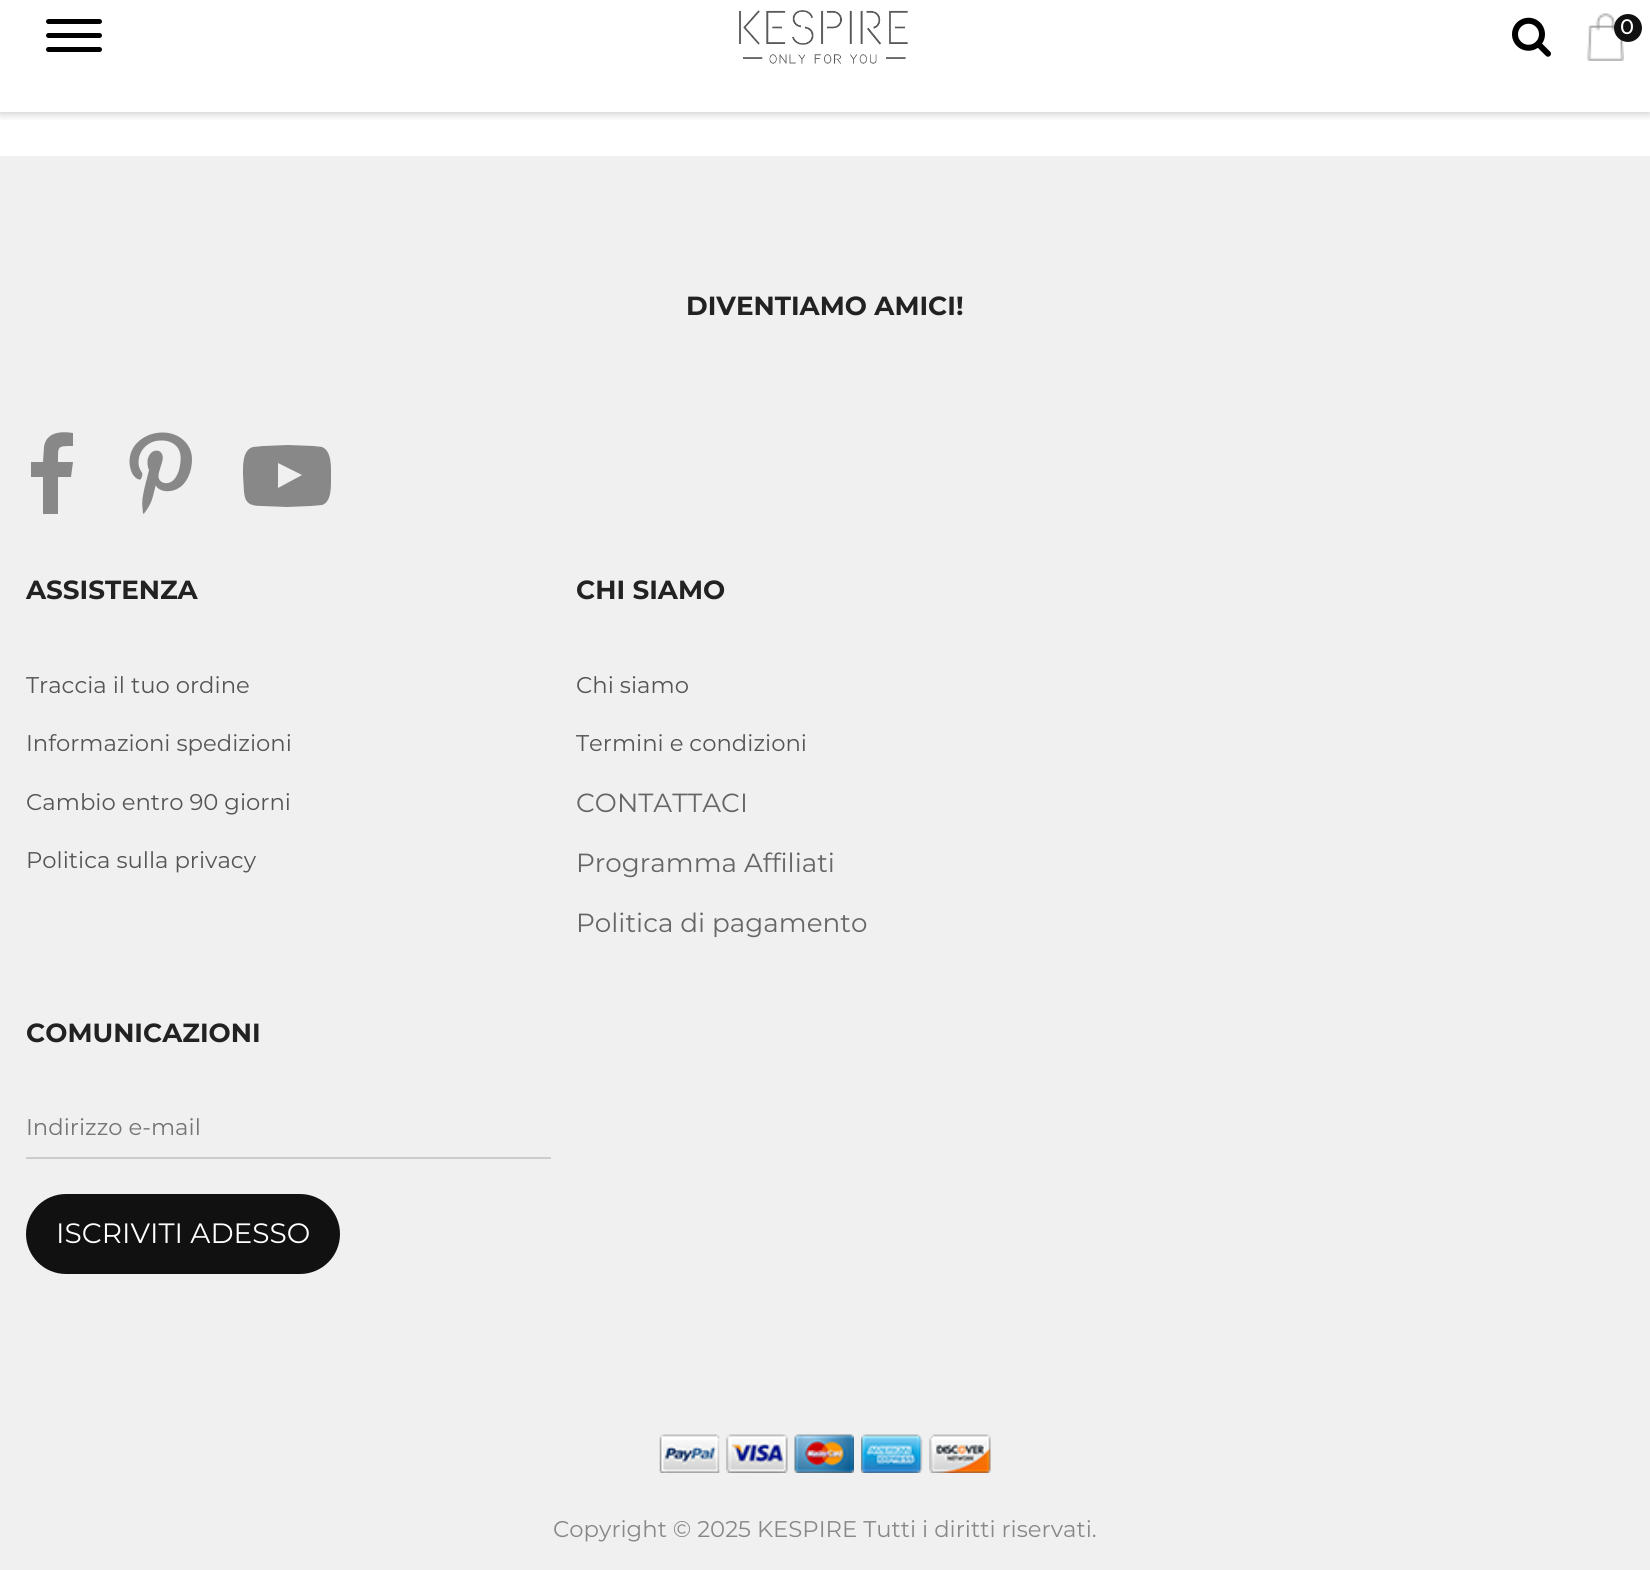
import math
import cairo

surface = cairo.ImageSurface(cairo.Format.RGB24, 1650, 1570)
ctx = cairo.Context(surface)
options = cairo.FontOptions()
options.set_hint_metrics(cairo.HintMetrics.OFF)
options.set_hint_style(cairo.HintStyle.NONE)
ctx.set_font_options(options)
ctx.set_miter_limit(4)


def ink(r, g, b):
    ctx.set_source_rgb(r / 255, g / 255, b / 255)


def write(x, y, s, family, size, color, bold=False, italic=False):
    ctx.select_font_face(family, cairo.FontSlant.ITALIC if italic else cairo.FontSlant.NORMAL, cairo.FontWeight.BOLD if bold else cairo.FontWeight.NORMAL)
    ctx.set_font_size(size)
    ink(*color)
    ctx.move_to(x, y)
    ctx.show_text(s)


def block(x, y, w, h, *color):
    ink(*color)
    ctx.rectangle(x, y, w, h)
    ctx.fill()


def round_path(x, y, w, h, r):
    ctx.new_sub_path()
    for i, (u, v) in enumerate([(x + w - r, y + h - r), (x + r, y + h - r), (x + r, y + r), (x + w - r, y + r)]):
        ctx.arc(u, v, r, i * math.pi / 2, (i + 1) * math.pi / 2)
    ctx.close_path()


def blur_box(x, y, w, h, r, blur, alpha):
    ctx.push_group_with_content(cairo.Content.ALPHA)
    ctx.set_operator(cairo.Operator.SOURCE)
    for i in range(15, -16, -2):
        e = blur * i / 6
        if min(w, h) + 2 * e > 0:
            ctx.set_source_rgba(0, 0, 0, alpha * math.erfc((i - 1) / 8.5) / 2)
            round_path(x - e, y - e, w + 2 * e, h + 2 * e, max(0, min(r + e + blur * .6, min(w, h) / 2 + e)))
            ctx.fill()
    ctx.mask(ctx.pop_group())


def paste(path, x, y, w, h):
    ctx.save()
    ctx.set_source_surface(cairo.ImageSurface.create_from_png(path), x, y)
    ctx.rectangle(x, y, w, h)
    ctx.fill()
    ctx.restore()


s1 = dict(family="Montserrat Medium", size=21, color=(255, 255, 255))
s2 = dict(family="Montserrat", size=26.25, color=(34, 34, 34), bold=True)
s3 = dict(family="Montserrat", size=22.75, color=(85, 85, 85))
s4 = dict(family="Montserrat", size=26.25, color=(102, 102, 102))
s5 = dict(family="Montserrat", size=22.75, color=(117, 117, 117))
s6 = dict(family="Montserrat", size=28, color=(255, 255, 255))
s7 = dict(family="Montserrat", size=22.75, color=(136, 136, 136))

ink(255, 255, 255)
ctx.paint()
ctx.save()
ctx.rectangle(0, 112, 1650, 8)
ctx.clip()
ink(0, 0, 0)
blur_box(0, -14, 1650, 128, 0, 4.5, 0.2)
ctx.restore()
ink(0, 0, 0)
round_path(46, 33, 56, 5, 2.5)
ctx.fill()
round_path(46, 19, 56, 5, 2.5)
ctx.fill()
round_path(46, 47, 56, 5, 2.5)
ctx.fill()
paste("pic1.png", 739, 10, 169, 54)
paste("pic2.png", 1512, 17, 39, 40)
paste("pic3.png", 1587, 13, 37, 48)
ink(17, 17, 17)
ctx.arc(1628, 28, 14, 0, 2 * math.pi)
ctx.fill()
write(1620, 34, "0", **s1)
block(0, 156, 1650, 1414, 240, 240, 240)
write(686, 315, "DIVENTIAMO AMICI!", **s2)
ink(136, 136, 136)
ctx.new_path()
ctx.move_to(73, 433)
ctx.line_to(73, 446)
ctx.curve_to(57, 446, 58, 446, 58, 462)
ctx.line_to(73, 462)
ctx.line_to(71, 477)
ctx.line_to(58, 477)
ctx.line_to(58, 514)
ctx.line_to(43, 514)
ctx.line_to(43, 477)
ctx.line_to(31, 477)
ctx.line_to(31, 462)
ctx.line_to(43, 462)
ctx.line_to(44, 447)
ctx.curve_to(46, 432, 61, 431, 73, 433)
ctx.close_path()
ctx.fill()
paste("pic4.png", 129, 432, 63, 82)
ctx.new_path()
ctx.move_to(278, 488)
ctx.line_to(302, 475)
ctx.line_to(278, 463)
ctx.close_path()
ctx.move_to(287, 445)
ctx.line_to(313, 446)
ctx.line_to(322, 447)
ctx.curve_to(332, 451, 331, 468, 331, 476)
ctx.curve_to(331, 485, 332, 502, 322, 505)
ctx.line_to(311, 506)
ctx.line_to(287, 507)
ctx.line_to(262, 506)
ctx.curve_to(251, 506, 245, 504, 244, 492)
ctx.line_to(243, 475)
ctx.curve_to(243, 467, 242, 450, 253, 447)
ctx.line_to(263, 446)
ctx.close_path()
ctx.fill()
write(26, 599, "ASSISTENZA", **s2)
write(26, 693, "Traccia il tuo ordine", **s3)
write(26, 751, "Informazioni spedizioni", **s3)
write(26, 810, "Cambio entro 90 giorni", **s3)
write(26, 868, "Politica sulla privacy", **s3)
write(576, 599, "CHI SIAMO", **s2)
write(576, 693, "Chi siamo", **s3)
write(576, 751, "Termini e condizioni", **s3)
write(576, 812, "CONTATTACI", **s4)
write(576, 872, "Programma Affiliati", **s4)
write(576, 932, "Politica di pagamento", **s4)
write(26, 1042, "COMUNICAZIONI", **s2)
block(26, 1157, 525, 2, 204, 204, 204)
write(26, 1135, "Indirizzo e-mail", **s5)
ink(17, 17, 17)
round_path(26, 1194, 314, 80, 40)
ctx.fill()
write(56, 1243, "ISCRIVITI ADESSO", **s6)
paste("pic5.png", 659, 1434, 61, 39)
paste("pic6.png", 726, 1434, 62, 39)
paste("pic7.png", 794, 1434, 60, 39)
paste("pic8.png", 861, 1434, 62, 39)
paste("pic9.png", 929, 1434, 62, 39)
write(553, 1537, "Copyright © 2025 KESPIRE Tutti i diritti riservati.", **s7)
surface.write_to_png("screenshot.png")
